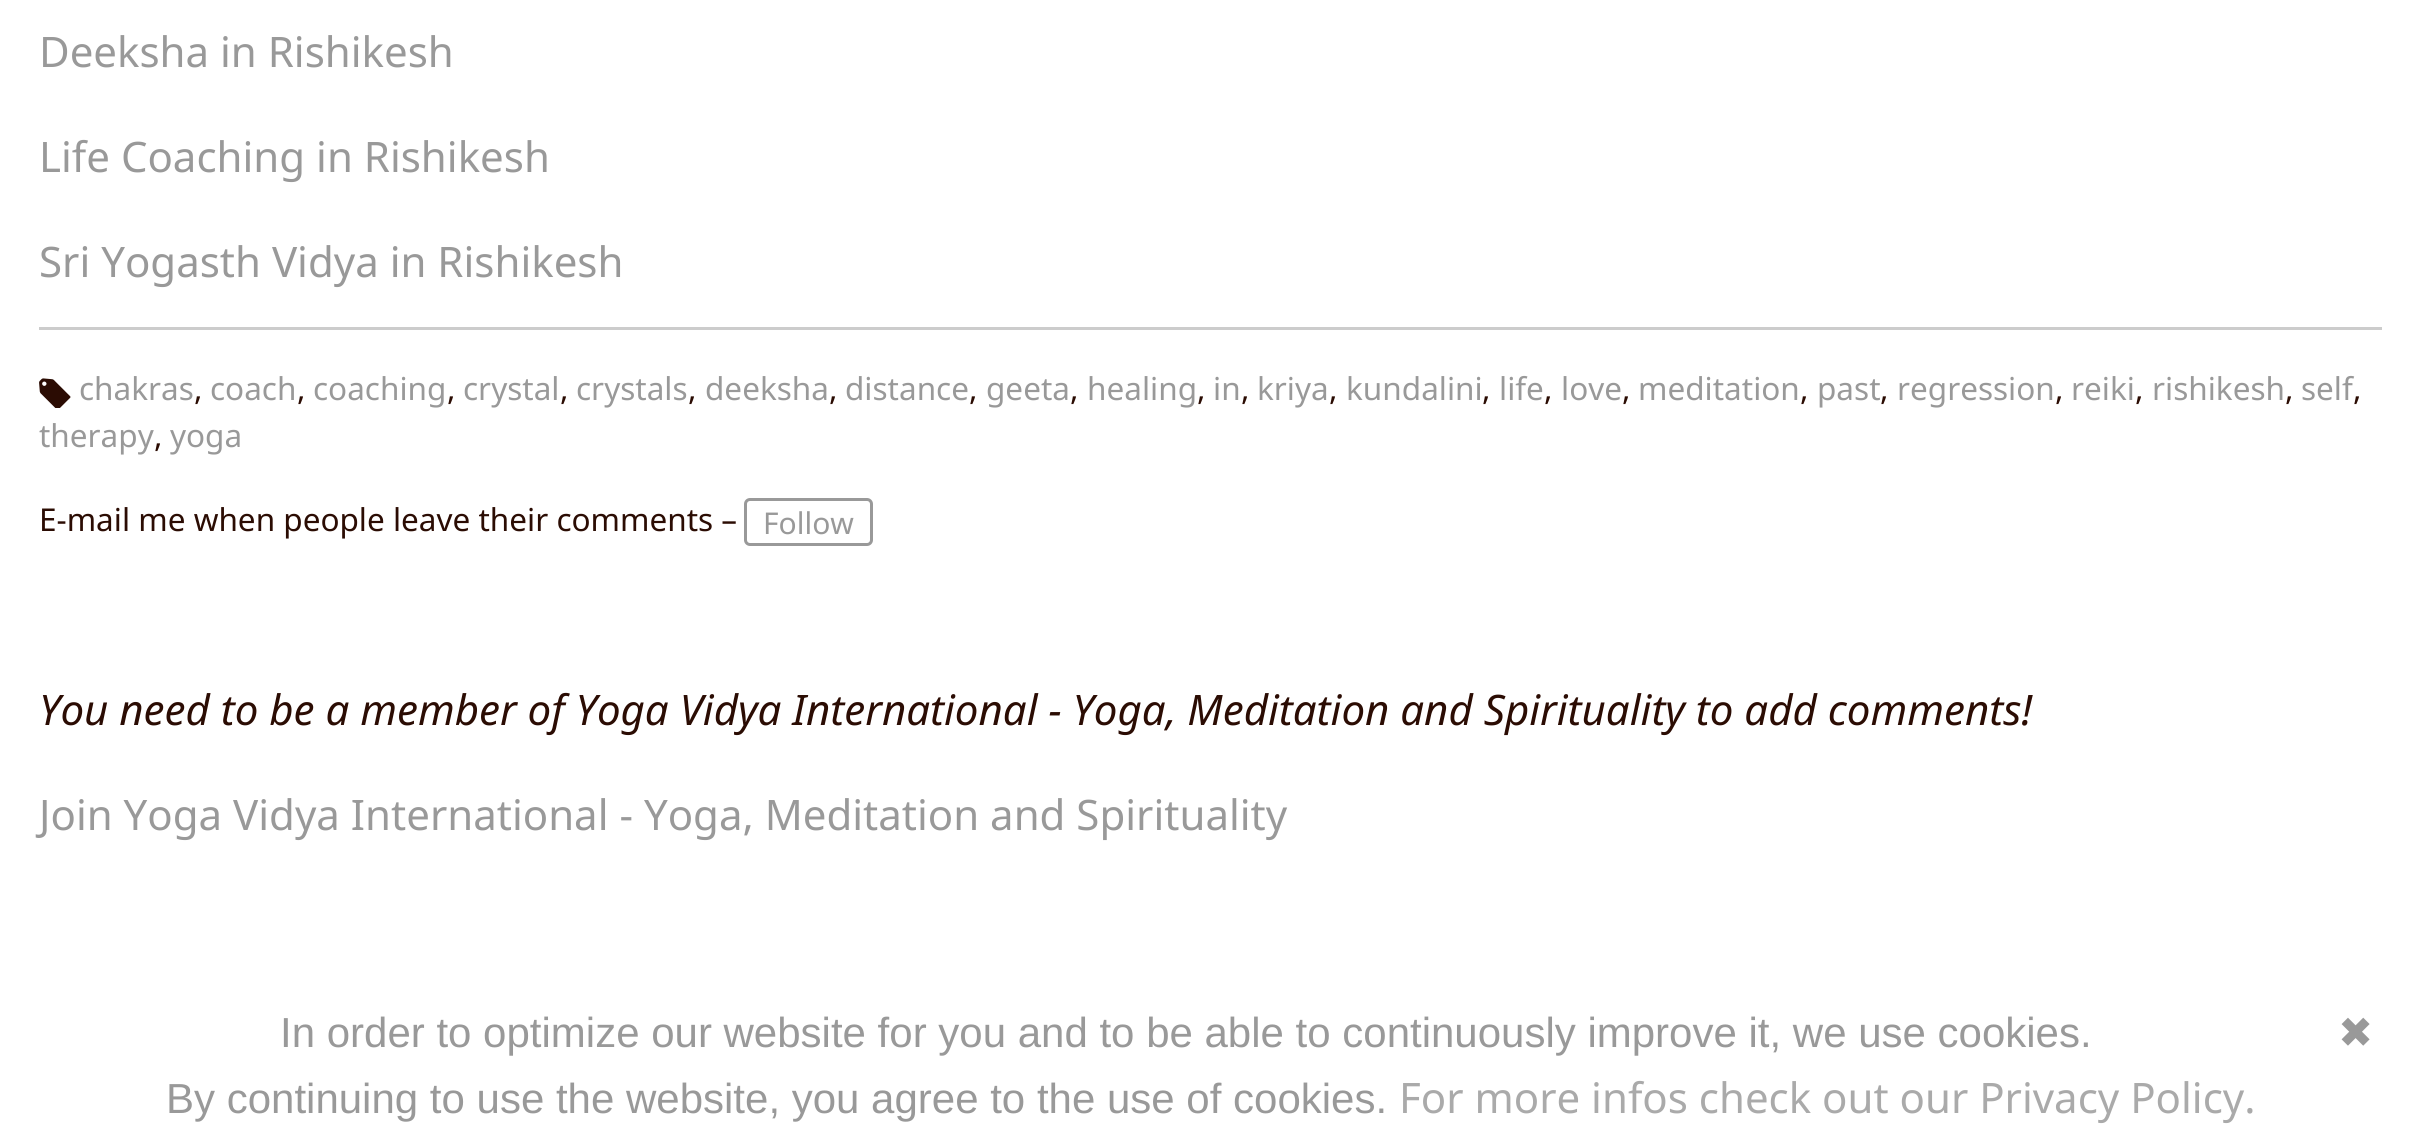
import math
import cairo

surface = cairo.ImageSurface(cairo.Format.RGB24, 2419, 1144)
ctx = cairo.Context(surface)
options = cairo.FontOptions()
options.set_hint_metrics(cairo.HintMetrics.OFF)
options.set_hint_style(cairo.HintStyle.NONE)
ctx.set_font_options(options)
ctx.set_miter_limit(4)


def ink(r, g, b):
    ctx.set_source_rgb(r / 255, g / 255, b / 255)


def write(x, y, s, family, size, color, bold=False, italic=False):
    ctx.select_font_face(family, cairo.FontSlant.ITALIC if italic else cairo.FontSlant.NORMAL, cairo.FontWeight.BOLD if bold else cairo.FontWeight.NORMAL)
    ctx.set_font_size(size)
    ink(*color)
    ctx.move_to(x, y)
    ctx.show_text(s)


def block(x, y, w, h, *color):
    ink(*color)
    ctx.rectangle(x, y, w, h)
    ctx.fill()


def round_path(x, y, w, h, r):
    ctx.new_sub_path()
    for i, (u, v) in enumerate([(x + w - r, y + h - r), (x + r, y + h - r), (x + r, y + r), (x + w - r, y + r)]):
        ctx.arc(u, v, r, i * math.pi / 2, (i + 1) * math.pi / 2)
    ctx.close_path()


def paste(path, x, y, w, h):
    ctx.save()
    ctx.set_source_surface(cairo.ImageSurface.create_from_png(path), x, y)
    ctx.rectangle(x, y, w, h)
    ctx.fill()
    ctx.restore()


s1 = dict(family="Noto Sans", size=42, color=(153, 153, 153))
s2 = dict(family="Noto Sans", size=31.5, color=(153, 153, 153))
s3 = dict(family="Noto Sans", size=31.5, color=(43, 12, 3))
s4 = dict(family="Noto Sans", size=30, color=(153, 153, 153))
s5 = dict(family="Noto Sans", size=42, color=(43, 12, 3), italic=True)
s6 = dict(family="Liberation Sans", size=42, color=(153, 153, 153))
s7 = dict(family="DejaVu Sans", size=42, color=(153, 153, 153))
s8 = dict(family="Noto Sans", size=42, color=(170, 170, 170))

ink(255, 255, 255)
ctx.paint()
write(39, 67, "Deeksha in Rishikesh", **s1)
write(39, 172, "Life Coaching in Rishikesh", **s1)
write(39, 277, "Sri Yogasth Vidya in Rishikesh", **s1)
block(39, 327, 2343, 3, 204, 204, 204)
paste("pic1.png", 39, 378, 32, 30)
write(79, 400, "chakras", **s2)
write(194, 400, ",", **s3)
write(210, 400, "coach", **s2)
write(297, 400, ",", **s3)
write(313, 400, "coaching", **s2)
write(447, 400, ",", **s3)
write(463, 400, "crystal", **s2)
write(560, 400, ",", **s3)
write(576, 400, "crystals", **s2)
write(688, 400, ",", **s3)
write(705, 400, "deeksha", **s2)
write(829, 400, ",", **s3)
write(845, 400, "distance", **s2)
write(969, 400, ",", **s3)
write(986, 400, "geeta", **s2)
write(1070, 400, ",", **s3)
write(1087, 400, "healing", **s2)
write(1197, 400, ",", **s3)
write(1213, 400, "in", **s2)
write(1241, 400, ",", **s3)
write(1257, 400, "kriya", **s2)
write(1329, 400, ",", **s3)
write(1346, 400, "kundalini", **s2)
write(1482, 400, ",", **s3)
write(1499, 400, "life", **s2)
write(1544, 400, ",", **s3)
write(1561, 400, "love", **s2)
write(1622, 400, ",", **s3)
write(1638, 400, "meditation", **s2)
write(1800, 400, ",", **s3)
write(1817, 400, "past", **s2)
write(1880, 400, ",", **s3)
write(1897, 400, "regression", **s2)
write(2055, 400, ",", **s3)
write(2071, 400, "reiki", **s2)
write(2135, 400, ",", **s3)
write(2152, 400, "rishikesh", **s2)
write(2285, 400, ",", **s3)
write(2301, 400, "self", **s2)
write(2353, 400, ",", **s3)
write(39, 447, "therapy", **s2)
write(154, 447, ",", **s3)
write(170, 447, "yoga", **s2)
write(39, 531, "E-mail me when people leave their comments –", **s3)
round_path(745.5, 499.5, 126, 45, 4.5)
ink(153, 153, 153)
ctx.set_line_width(3)
ctx.stroke()
write(763, 534, "Follow", **s4)
write(39, 725, "You need to be a member of Yoga Vidya International - Yoga, Meditation and Spirituality to add comments!", **s5)
write(39, 830, "Join Yoga Vidya International - Yoga, Meditation and Spirituality", **s1)
write(280, 1047, "In order to optimize our website for you and to be able to continuously improve it, we use cookies.", **s6)
write(2338, 1047, "✖", **s7)
write(166, 1113, "By continuing to use the website, you agree to the use of cookies.", **s6)
write(1399, 1113, "For more infos check out our Privacy Policy.", **s8)
surface.write_to_png("screenshot.png")
